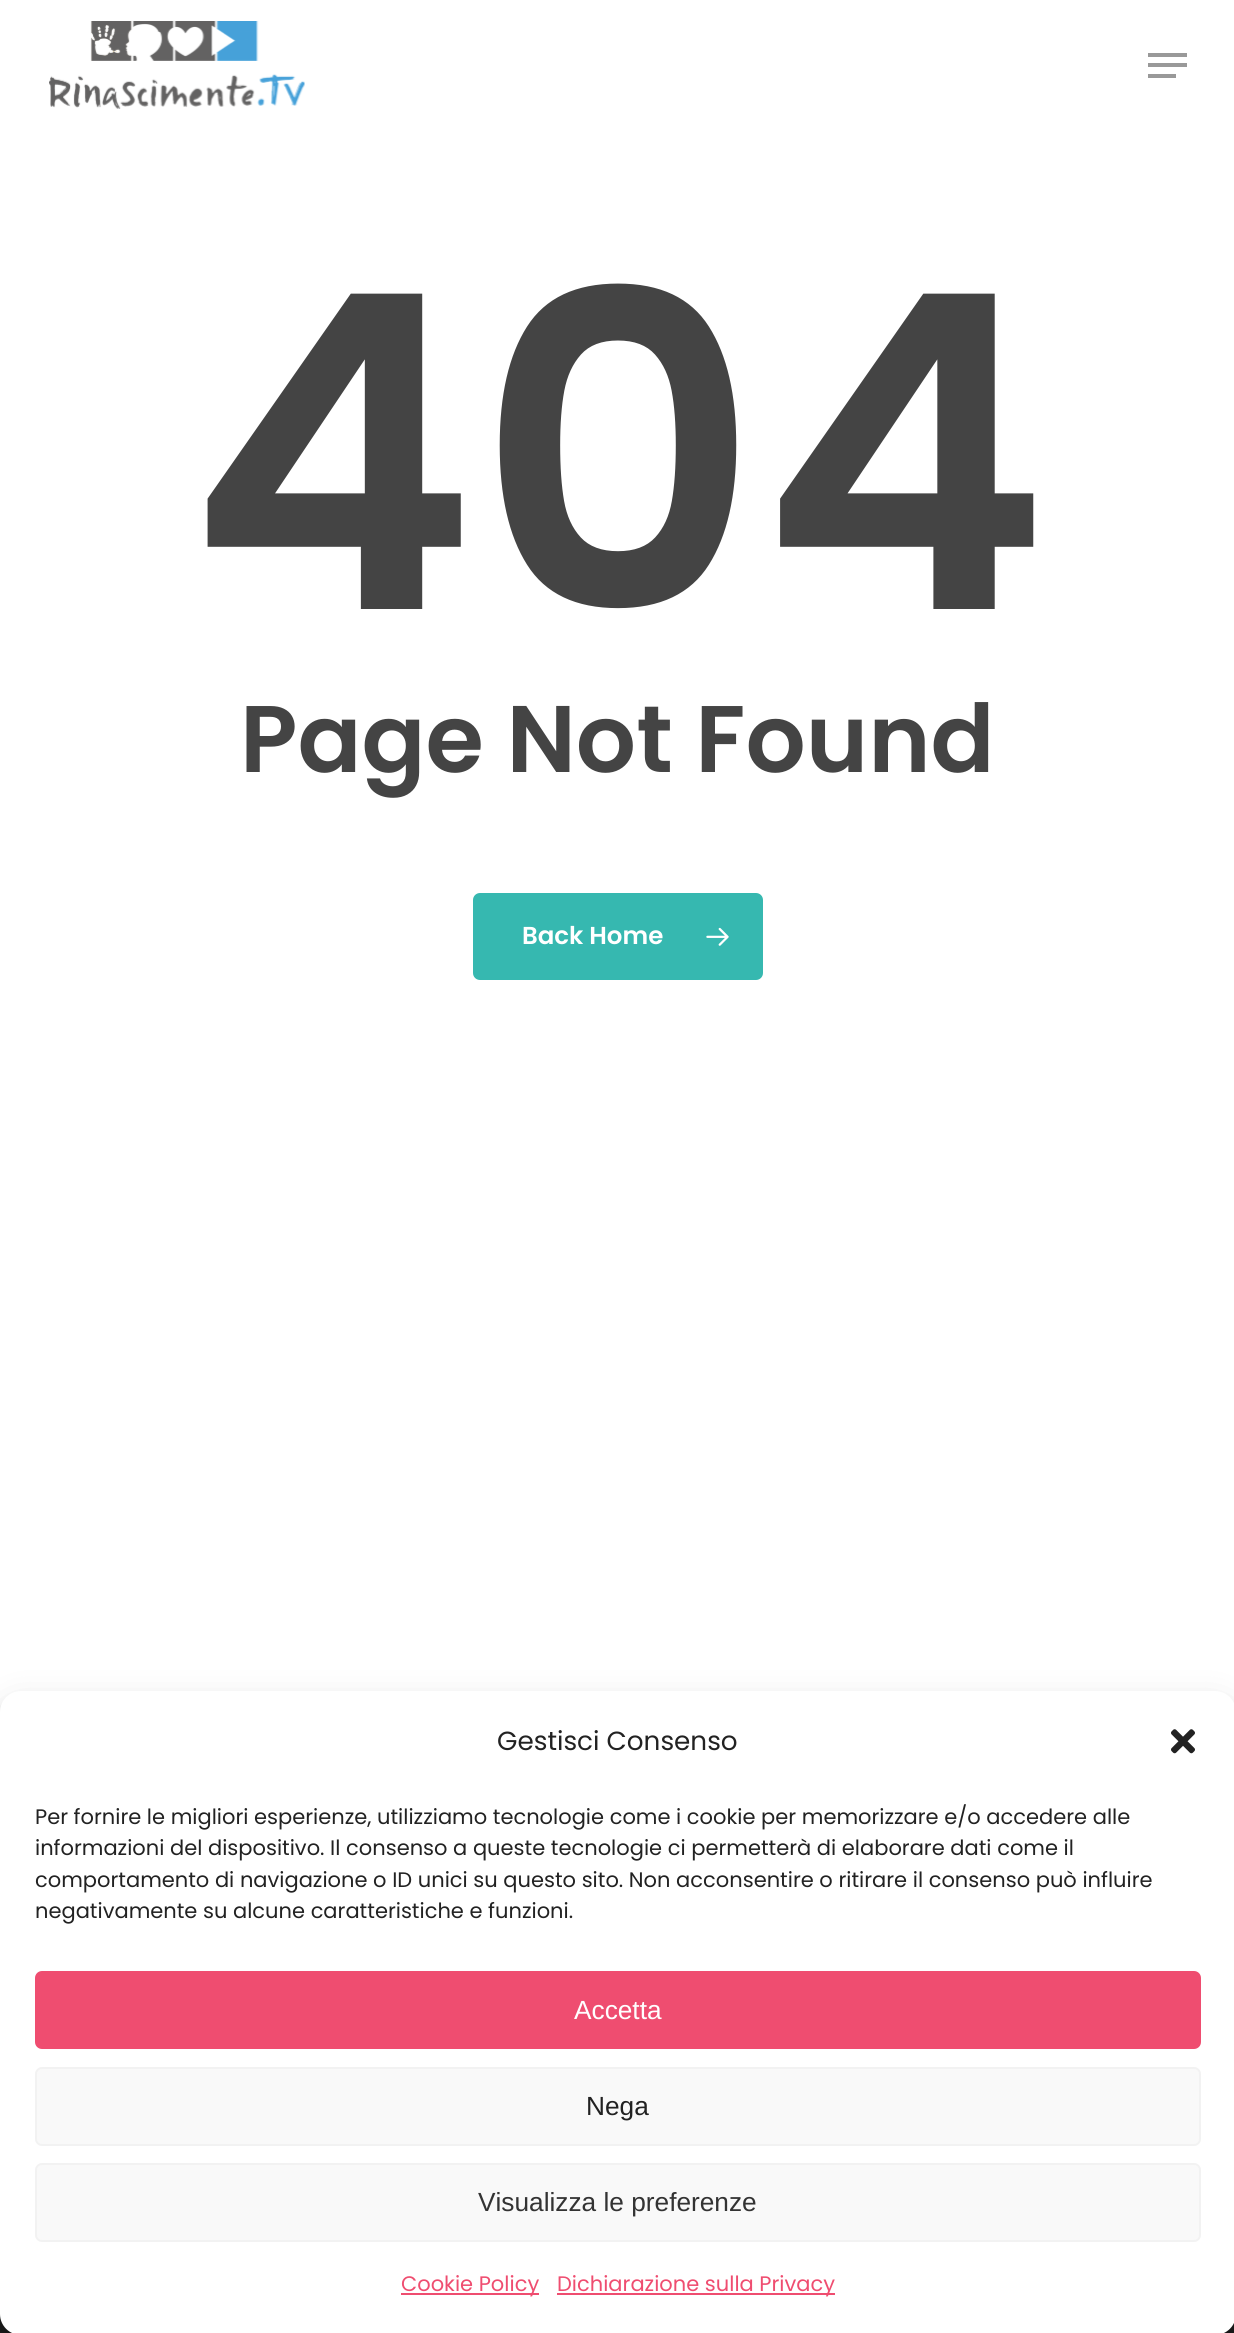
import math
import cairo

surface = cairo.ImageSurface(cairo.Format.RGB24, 1234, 2333)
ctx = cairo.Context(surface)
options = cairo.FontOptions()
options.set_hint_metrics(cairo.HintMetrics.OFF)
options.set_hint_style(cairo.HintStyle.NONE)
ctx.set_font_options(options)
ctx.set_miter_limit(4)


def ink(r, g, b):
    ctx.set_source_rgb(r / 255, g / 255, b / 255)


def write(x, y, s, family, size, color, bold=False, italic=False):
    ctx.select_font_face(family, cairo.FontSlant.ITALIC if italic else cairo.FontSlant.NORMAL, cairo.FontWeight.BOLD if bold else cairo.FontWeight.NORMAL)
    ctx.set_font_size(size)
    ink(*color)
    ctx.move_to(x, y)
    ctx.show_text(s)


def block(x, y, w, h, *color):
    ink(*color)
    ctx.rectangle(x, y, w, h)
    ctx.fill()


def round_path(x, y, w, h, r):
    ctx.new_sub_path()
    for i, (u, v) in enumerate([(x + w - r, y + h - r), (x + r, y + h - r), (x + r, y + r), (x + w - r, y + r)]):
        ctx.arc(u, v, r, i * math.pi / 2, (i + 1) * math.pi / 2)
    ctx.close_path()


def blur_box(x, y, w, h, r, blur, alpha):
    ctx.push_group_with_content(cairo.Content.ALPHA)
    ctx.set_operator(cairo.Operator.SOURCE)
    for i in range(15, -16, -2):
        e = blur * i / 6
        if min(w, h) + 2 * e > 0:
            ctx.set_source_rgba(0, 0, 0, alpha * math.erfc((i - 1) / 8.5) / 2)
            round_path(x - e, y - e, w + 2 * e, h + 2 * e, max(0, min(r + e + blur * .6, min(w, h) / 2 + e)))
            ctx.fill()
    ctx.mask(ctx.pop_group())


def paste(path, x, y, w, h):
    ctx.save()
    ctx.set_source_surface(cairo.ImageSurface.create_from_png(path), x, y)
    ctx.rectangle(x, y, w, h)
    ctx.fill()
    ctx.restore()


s1 = dict(family="Poppins SemiBold", size=438, color=(68, 68, 68))
s2 = dict(family="Poppins SemiBold", size=94.5, color=(68, 68, 68))
s3 = dict(family="Poppins SemiBold", size=24.5, color=(255, 255, 255))
s4 = dict(family="Poppins", size=26.25, color=(34, 34, 34))
s5 = dict(family="Poppins", size=21, color=(34, 34, 34))
s6 = dict(family="Liberation Sans", size=26.25, color=(255, 255, 255))
s7 = dict(family="Liberation Sans", size=26.25, color=(34, 34, 34))
s8 = dict(family="Liberation Sans", size=26.25, color=(51, 51, 51))
s9 = dict(family="Poppins", size=21, color=(239, 77, 112))

ink(255, 255, 255)
ctx.paint()
paste("pic1.png", 49, 21, 256, 88)
block(1148, 53, 39, 4, 153, 153, 153)
block(1148, 74, 28, 4, 153, 153, 153)
block(1148, 63, 39, 4, 153, 153, 153)
write(187, 609, "404", **s1)
write(240, 772, "Page Not Found", **s2)
ink(54, 184, 176)
round_path(473, 893, 290, 87, 7)
ctx.fill()
write(522, 944, "Back Home", **s3)
paste("pic2.png", 706, 927, 23, 19)
block(0, 2314, 1234, 19, 31, 31, 31)
ink(0, 0, 0)
blur_box(0, 1701, 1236, 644, 21, 5, 0.23)
blur_box(0, 1708, 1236, 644, 21, 17.5, 0.19)
ink(255, 255, 255)
round_path(0, 1691, 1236, 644, 21)
ctx.fill()
write(497, 1750, "Gestisci Consenso", **s4)
paste("pic3.png", 1171, 1729, 24, 25)
write(35, 1824, "Per fornire le migliori esperienze, utilizziamo tecnologie come i cookie per memorizzare e/o accedere alle", **s5)
write(35, 1855, "informazioni del dispositivo. Il consenso a queste tecnologie ci permetterà di elaborare dati come il", **s5)
write(35, 1887, "comportamento di navigazione o ID unici su questo sito. Non acconsentire o ritirare il consenso può influire", **s5)
write(35, 1918, "negativamente su alcune caratteristiche e funzioni.", **s5)
ink(239, 77, 112)
round_path(36, 1972, 1164, 76, 6)
ctx.fill_preserve()
ctx.stroke()
write(574, 2019, "Accetta", **s6)
ink(249, 249, 249)
round_path(36, 2068, 1164, 77, 6)
ctx.fill_preserve()
ink(242, 242, 242)
ctx.stroke()
write(586, 2115, "Nega", **s7)
ink(249, 249, 249)
round_path(36, 2164, 1164, 77, 6)
ctx.fill_preserve()
ink(242, 242, 242)
ctx.stroke()
write(478, 2211, "Visualizza le preferenze", **s8)
block(401, 2293, 138, 2, 239, 77, 112)
write(401, 2291, "Cookie Policy", **s9)
block(557, 2293, 278, 2, 239, 77, 112)
write(557, 2291, "Dichiarazione sulla Privacy", **s9)
surface.write_to_png("screenshot.png")
